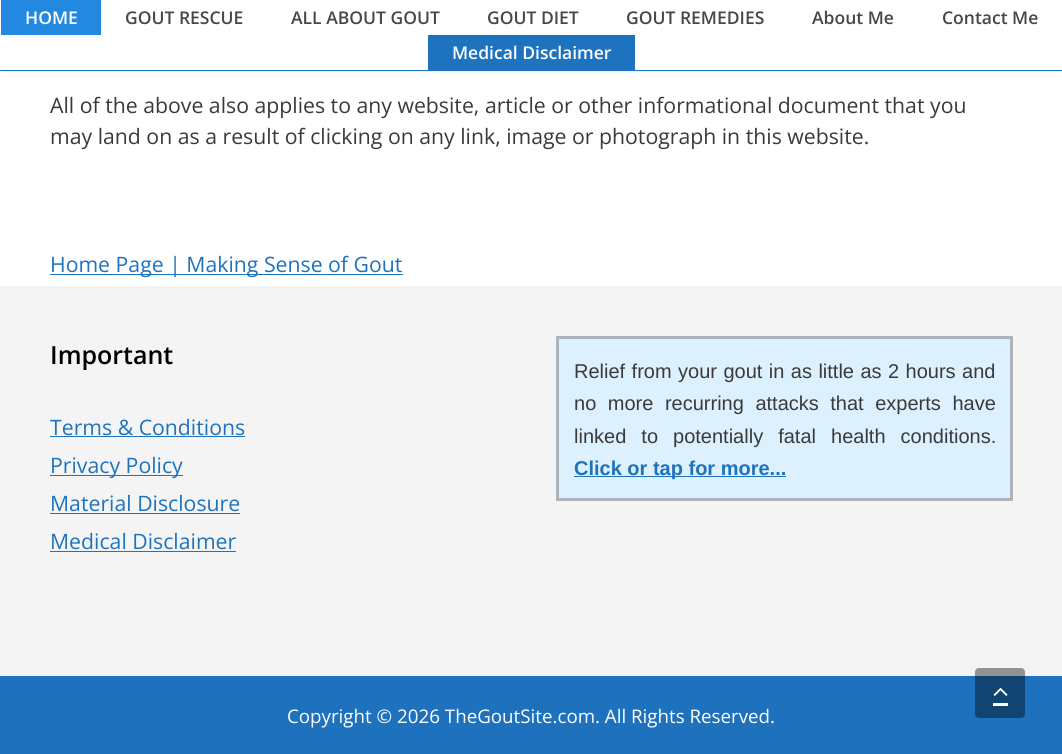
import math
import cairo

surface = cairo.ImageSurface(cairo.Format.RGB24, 1062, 754)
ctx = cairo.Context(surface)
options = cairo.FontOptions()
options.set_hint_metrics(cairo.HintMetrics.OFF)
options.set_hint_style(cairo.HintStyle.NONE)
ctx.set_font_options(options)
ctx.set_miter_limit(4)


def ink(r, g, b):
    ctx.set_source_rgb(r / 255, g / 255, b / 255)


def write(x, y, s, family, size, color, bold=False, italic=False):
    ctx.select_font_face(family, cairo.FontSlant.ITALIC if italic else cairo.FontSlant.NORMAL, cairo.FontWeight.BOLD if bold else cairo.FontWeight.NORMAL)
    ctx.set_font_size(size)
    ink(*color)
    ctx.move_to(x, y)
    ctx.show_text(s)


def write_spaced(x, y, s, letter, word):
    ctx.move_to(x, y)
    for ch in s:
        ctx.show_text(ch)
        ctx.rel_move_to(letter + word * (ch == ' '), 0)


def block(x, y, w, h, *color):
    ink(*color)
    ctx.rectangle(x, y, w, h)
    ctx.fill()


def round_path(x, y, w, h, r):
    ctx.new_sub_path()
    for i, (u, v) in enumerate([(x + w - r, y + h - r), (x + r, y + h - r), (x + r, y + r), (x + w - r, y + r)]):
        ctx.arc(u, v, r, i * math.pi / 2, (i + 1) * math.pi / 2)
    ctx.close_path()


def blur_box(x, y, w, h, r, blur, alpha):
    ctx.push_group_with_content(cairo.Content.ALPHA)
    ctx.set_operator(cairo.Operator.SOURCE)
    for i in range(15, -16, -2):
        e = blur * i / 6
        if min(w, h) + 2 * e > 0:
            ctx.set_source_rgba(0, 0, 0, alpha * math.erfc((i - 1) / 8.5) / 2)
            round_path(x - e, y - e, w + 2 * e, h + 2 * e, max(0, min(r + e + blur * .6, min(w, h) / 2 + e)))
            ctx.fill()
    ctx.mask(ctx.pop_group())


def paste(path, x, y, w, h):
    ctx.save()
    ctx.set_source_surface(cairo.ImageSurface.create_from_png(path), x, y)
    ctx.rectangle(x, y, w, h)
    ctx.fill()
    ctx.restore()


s1 = dict(family="Open Sans SemiBold", size=17.5, color=(255, 255, 255))
s2 = dict(family="Open Sans SemiBold", size=17.5, color=(71, 71, 71))
s3 = dict(family="Open Sans", size=21.25, color=(58, 58, 58))
s4 = dict(family="Open Sans", size=21.25, color=(30, 115, 190))
s5 = dict(family="Open Sans SemiBold", size=25, color=(0, 0, 0))
s6 = dict(family="Liberation Sans", size=20, color=(30, 115, 190), bold=True)
s7 = dict(family="Open Sans", size=18.75, color=(255, 255, 255))

ink(255, 255, 255)
ctx.paint()
ink(0, 0, 0)
blur_box(3, 5, 1057, 66, 0, 1, 0.2)
block(1, 3, 1061, 67, 255, 255, 255)
block(0, 70, 1062, 1, 30, 115, 190)
block(1, 0, 100, 35, 35, 136, 224)
write(25, 24, "HOME", **s1)
write(125, 24, "GOUT RESCUE", **s2)
write(291, 24, "ALL ABOUT GOUT", **s2)
write(487, 24, "GOUT DIET", **s2)
write(626, 24, "GOUT REMEDIES", **s2)
write(812, 24, "About Me", **s2)
write(942, 24, "Contact Me", **s2)
block(428, 35, 207, 35, 30, 115, 190)
write(452, 59, "Medical Disclaimer", **s1)
write(50, 113, "All of the above also applies to any website, article or other informational document that you", **s3)
write(50, 144, "may land on as a result of clicking on any link, image or photograph in this website.", **s3)
block(50, 274, 353, 1, 30, 115, 190)
write(50, 272, "Home Page | Making Sense of Gout", **s4)
block(0, 286, 1062, 390, 244, 244, 244)
write(50, 364, "Important", **s5)
write(50, 435, "Terms & Conditions", **s4)
block(50, 436, 195, 1, 30, 115, 190)
block(50, 475, 133, 1, 30, 115, 190)
write(50, 473, "Privacy Policy", **s4)
write(50, 511, "Material Disclosure", **s4)
block(50, 513, 190, 1, 30, 115, 190)
write(50, 549, "Medical Disclaimer", **s4)
block(50, 551, 186, 1, 30, 115, 190)
ink(220, 240, 254)
ctx.rectangle(557.5, 337.5, 454, 162)
ctx.fill_preserve()
ink(173, 179, 188)
ctx.set_line_width(3)
ctx.stroke()
ctx.select_font_face("Liberation Sans")
ctx.set_font_size(20)
ink(58, 58, 58)
write_spaced(574, 378, "Relief from your gout in as little as 2 hours and", 0, 0.9)
write_spaced(574, 410, "no more recurring attacks that experts have", 0, 6)
write_spaced(574, 443, "linked to potentially fatal health conditions.", 0, 9.5)
block(574, 476, 212, 1, 30, 115, 190)
write(574, 475, "Click or tap for more...", **s6)
block(0, 676, 1062, 78, 30, 114, 189)
write(287, 723, "Copyright © 2026 TheGoutSite.com. All Rights Reserved.", **s7)
ctx.set_source_rgba(0, 0, 0, 0.4)
round_path(975, 668, 50, 50, 4)
ctx.fill()
paste("pic1.png", 993, 687, 15, 9)
block(993, 703, 15, 3, 255, 255, 255)
surface.write_to_png("screenshot.png")
